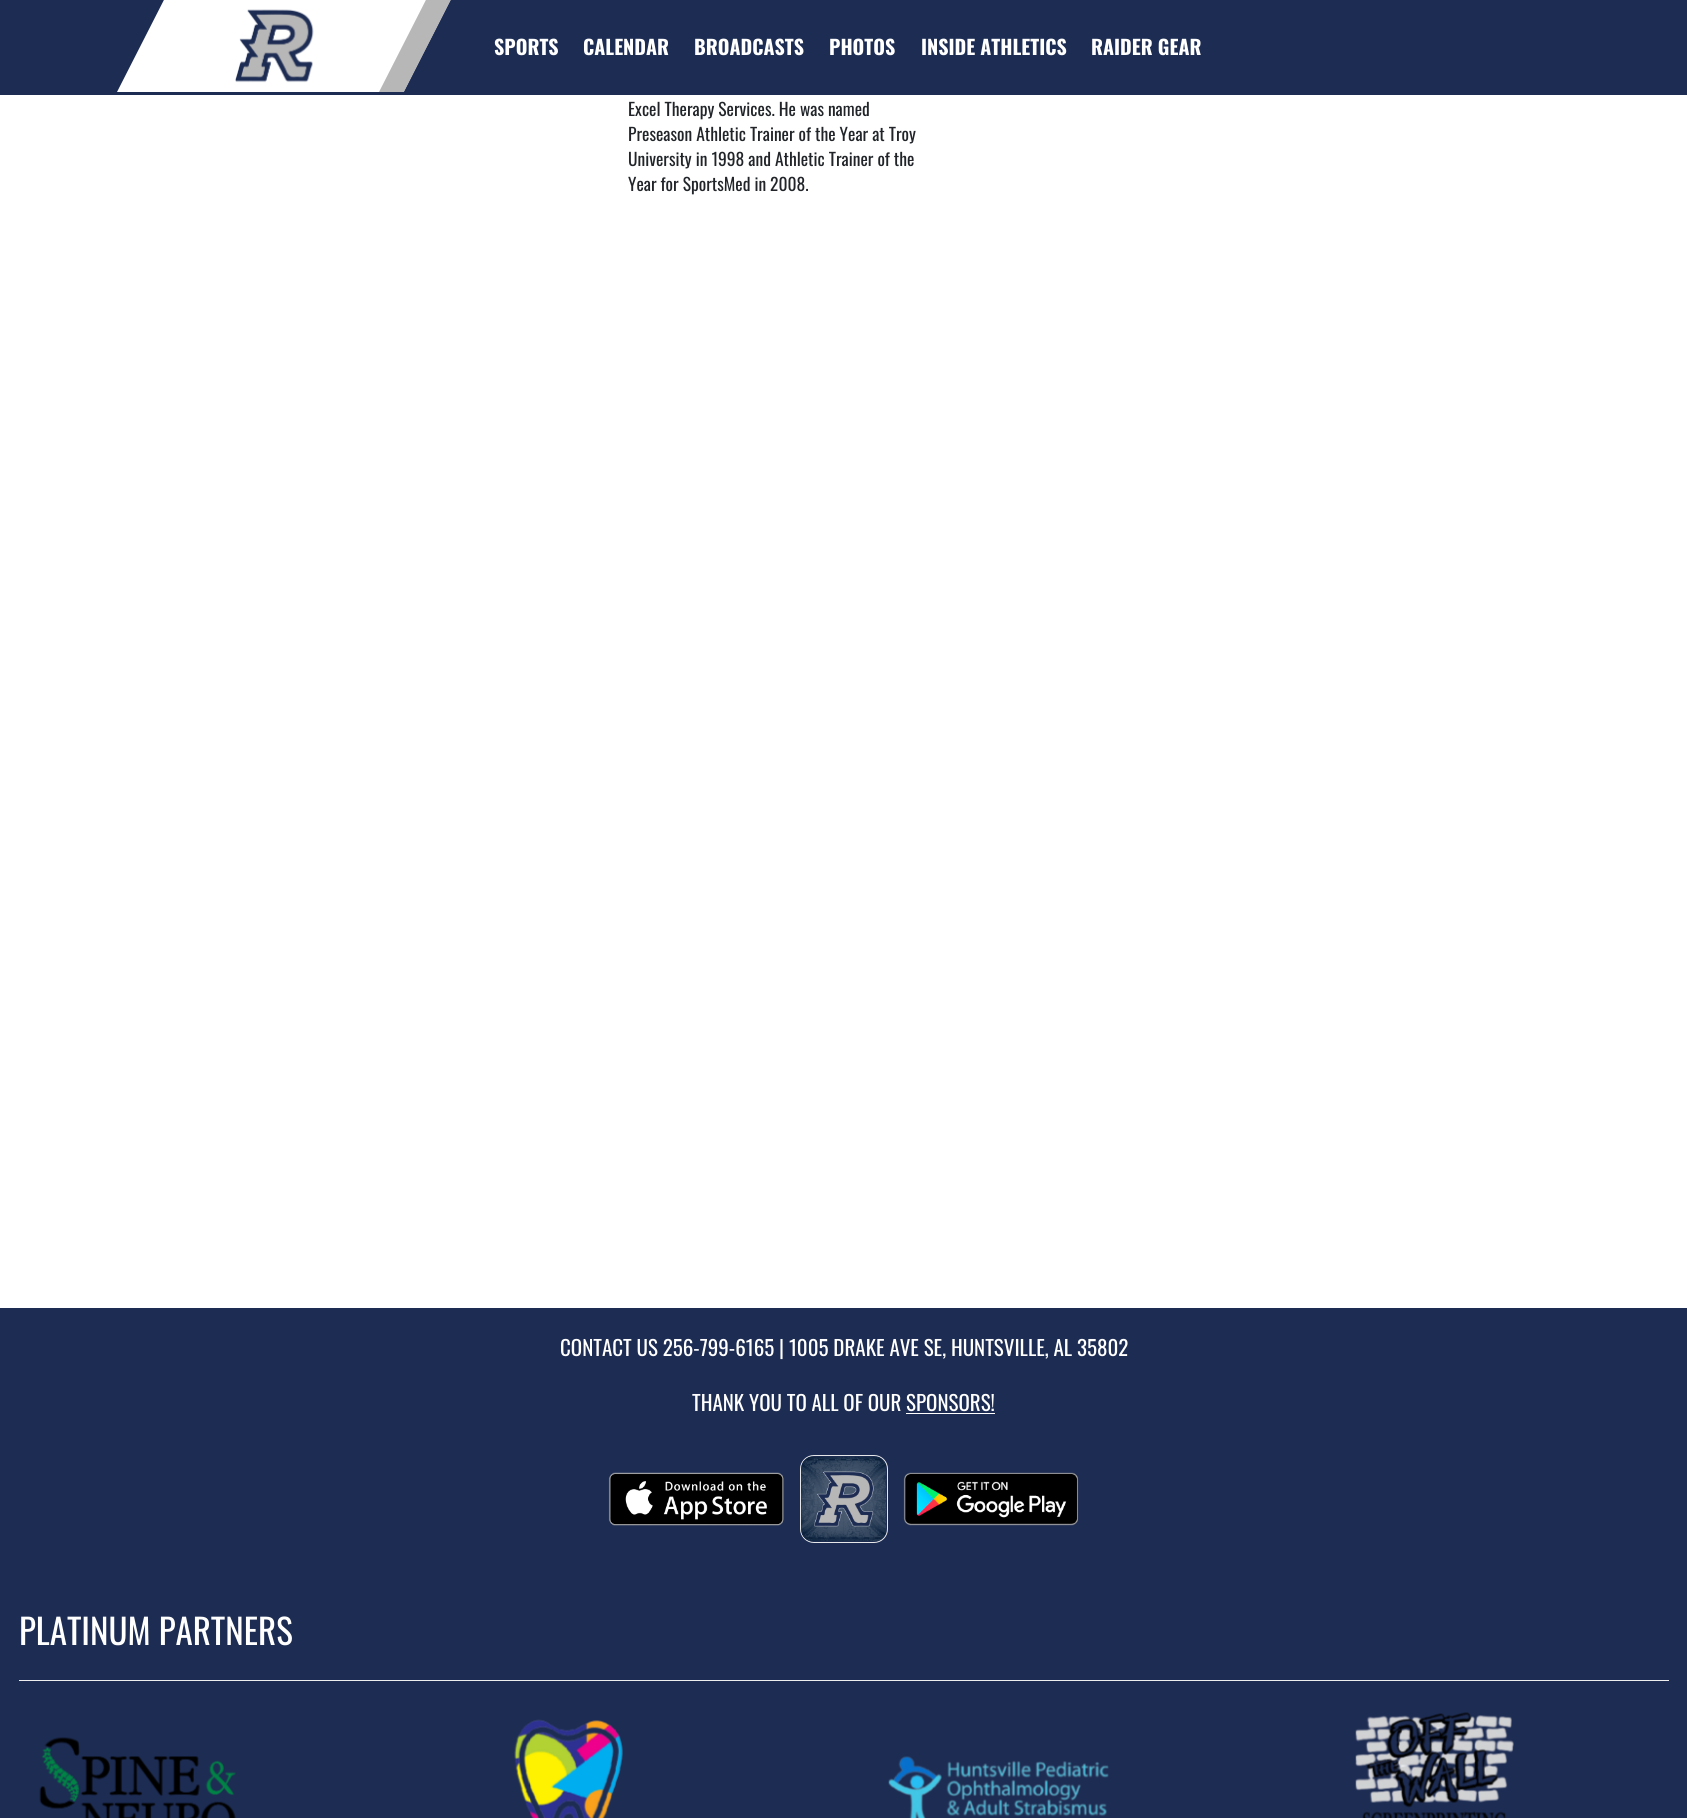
import math
import cairo

surface = cairo.ImageSurface(cairo.Format.RGB24, 1687, 1818)
ctx = cairo.Context(surface)
options = cairo.FontOptions()
options.set_hint_metrics(cairo.HintMetrics.OFF)
options.set_hint_style(cairo.HintStyle.NONE)
ctx.set_font_options(options)
ctx.set_miter_limit(4)


def ink(r, g, b):
    ctx.set_source_rgb(r / 255, g / 255, b / 255)


def write(x, y, s, family, size, color, bold=False, italic=False):
    ctx.select_font_face(family, cairo.FontSlant.ITALIC if italic else cairo.FontSlant.NORMAL, cairo.FontWeight.BOLD if bold else cairo.FontWeight.NORMAL)
    ctx.set_font_size(size)
    ink(*color)
    ctx.move_to(x, y)
    ctx.show_text(s)


def block(x, y, w, h, *color):
    ink(*color)
    ctx.rectangle(x, y, w, h)
    ctx.fill()


def round_path(x, y, w, h, r):
    ctx.new_sub_path()
    for i, (u, v) in enumerate([(x + w - r, y + h - r), (x + r, y + h - r), (x + r, y + r), (x + w - r, y + r)]):
        ctx.arc(u, v, r, i * math.pi / 2, (i + 1) * math.pi / 2)
    ctx.close_path()


def paste(path, x, y, w, h):
    ctx.save()
    ctx.set_source_surface(cairo.ImageSurface.create_from_png(path), x, y)
    ctx.rectangle(x, y, w, h)
    ctx.fill()
    ctx.restore()


s1 = dict(family="Oswald", size=20, color=(255, 255, 255), bold=True)
s2 = dict(family="Oswald", size=17.5, color=(33, 37, 41))
s3 = dict(family="Oswald", size=21, color=(255, 255, 255))
s4 = dict(family="Oswald", size=35, color=(255, 255, 255))

ink(255, 255, 255)
ctx.paint()
block(0, 0, 1687, 95, 29, 44, 83)
ink(255, 255, 255)
ctx.new_path()
ctx.move_to(221, -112)
ctx.line_to(508, -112)
ctx.line_to(404, 92)
ctx.line_to(117, 92)
ctx.close_path()
ctx.fill()
ink(183, 183, 183)
ctx.new_path()
ctx.move_to(483, -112)
ctx.line_to(508, -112)
ctx.line_to(404, 92)
ctx.line_to(379, 92)
ctx.close_path()
ctx.fill()
paste("pic1.png", 235, 9, 79, 74)
ink(29, 44, 83)
ctx.new_path()
ctx.move_to(508, -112)
ctx.line_to(533, -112)
ctx.line_to(429, 92)
ctx.line_to(404, 92)
ctx.close_path()
ctx.fill()
write(494, 55, "SPORTS", **s1)
write(583, 55, "CALENDAR", **s1)
write(694, 55, "BROADCASTS", **s1)
write(829, 55, "PHOTOS", **s1)
write(921, 55, "INSIDE ATHLETICS", **s1)
write(1091, 55, "RAIDER GEAR", **s1)
write(628, 116, "Excel Therapy Services. He was named", **s2)
write(628, 141, "Preseason Athletic Trainer of the Year at Troy", **s2)
write(628, 166, "University in 1998 and Athletic Trainer of the", **s2)
write(628, 191, "Year for SportsMed in 2008.", **s2)
block(0, 1308, 1687, 510, 29, 44, 83)
write(560, 1356, "CONTACT US 256-799-6165 | 1005 DRAKE AVE SE, HUNTSVILLE, AL 35802", **s3)
write(692, 1411, "THANK YOU TO ALL OF OUR SPONSORS!", **s3)
block(906, 1413, 89, 1, 255, 255, 255)
paste("pic2.png", 608, 1472, 176, 54)
round_path(800.5, 1455.5, 87, 87, 13.5)
ink(230, 231, 232)
ctx.set_line_width(1)
ctx.stroke()
paste("pic3.png", 801, 1456, 85, 86)
paste("pic4.png", 903, 1472, 176, 54)
write(19, 1645, "PLATINUM PARTNERS", **s4)
block(19, 1680, 1650, 1, 238, 238, 238)
paste("pic5.png", 39, 1737, 197, 81)
paste("pic6.png", 514, 1719, 109, 99)
paste("pic7.png", 888, 1756, 221, 62)
paste("pic8.png", 1355, 1712, 159, 106)
surface.write_to_png("screenshot.png")
